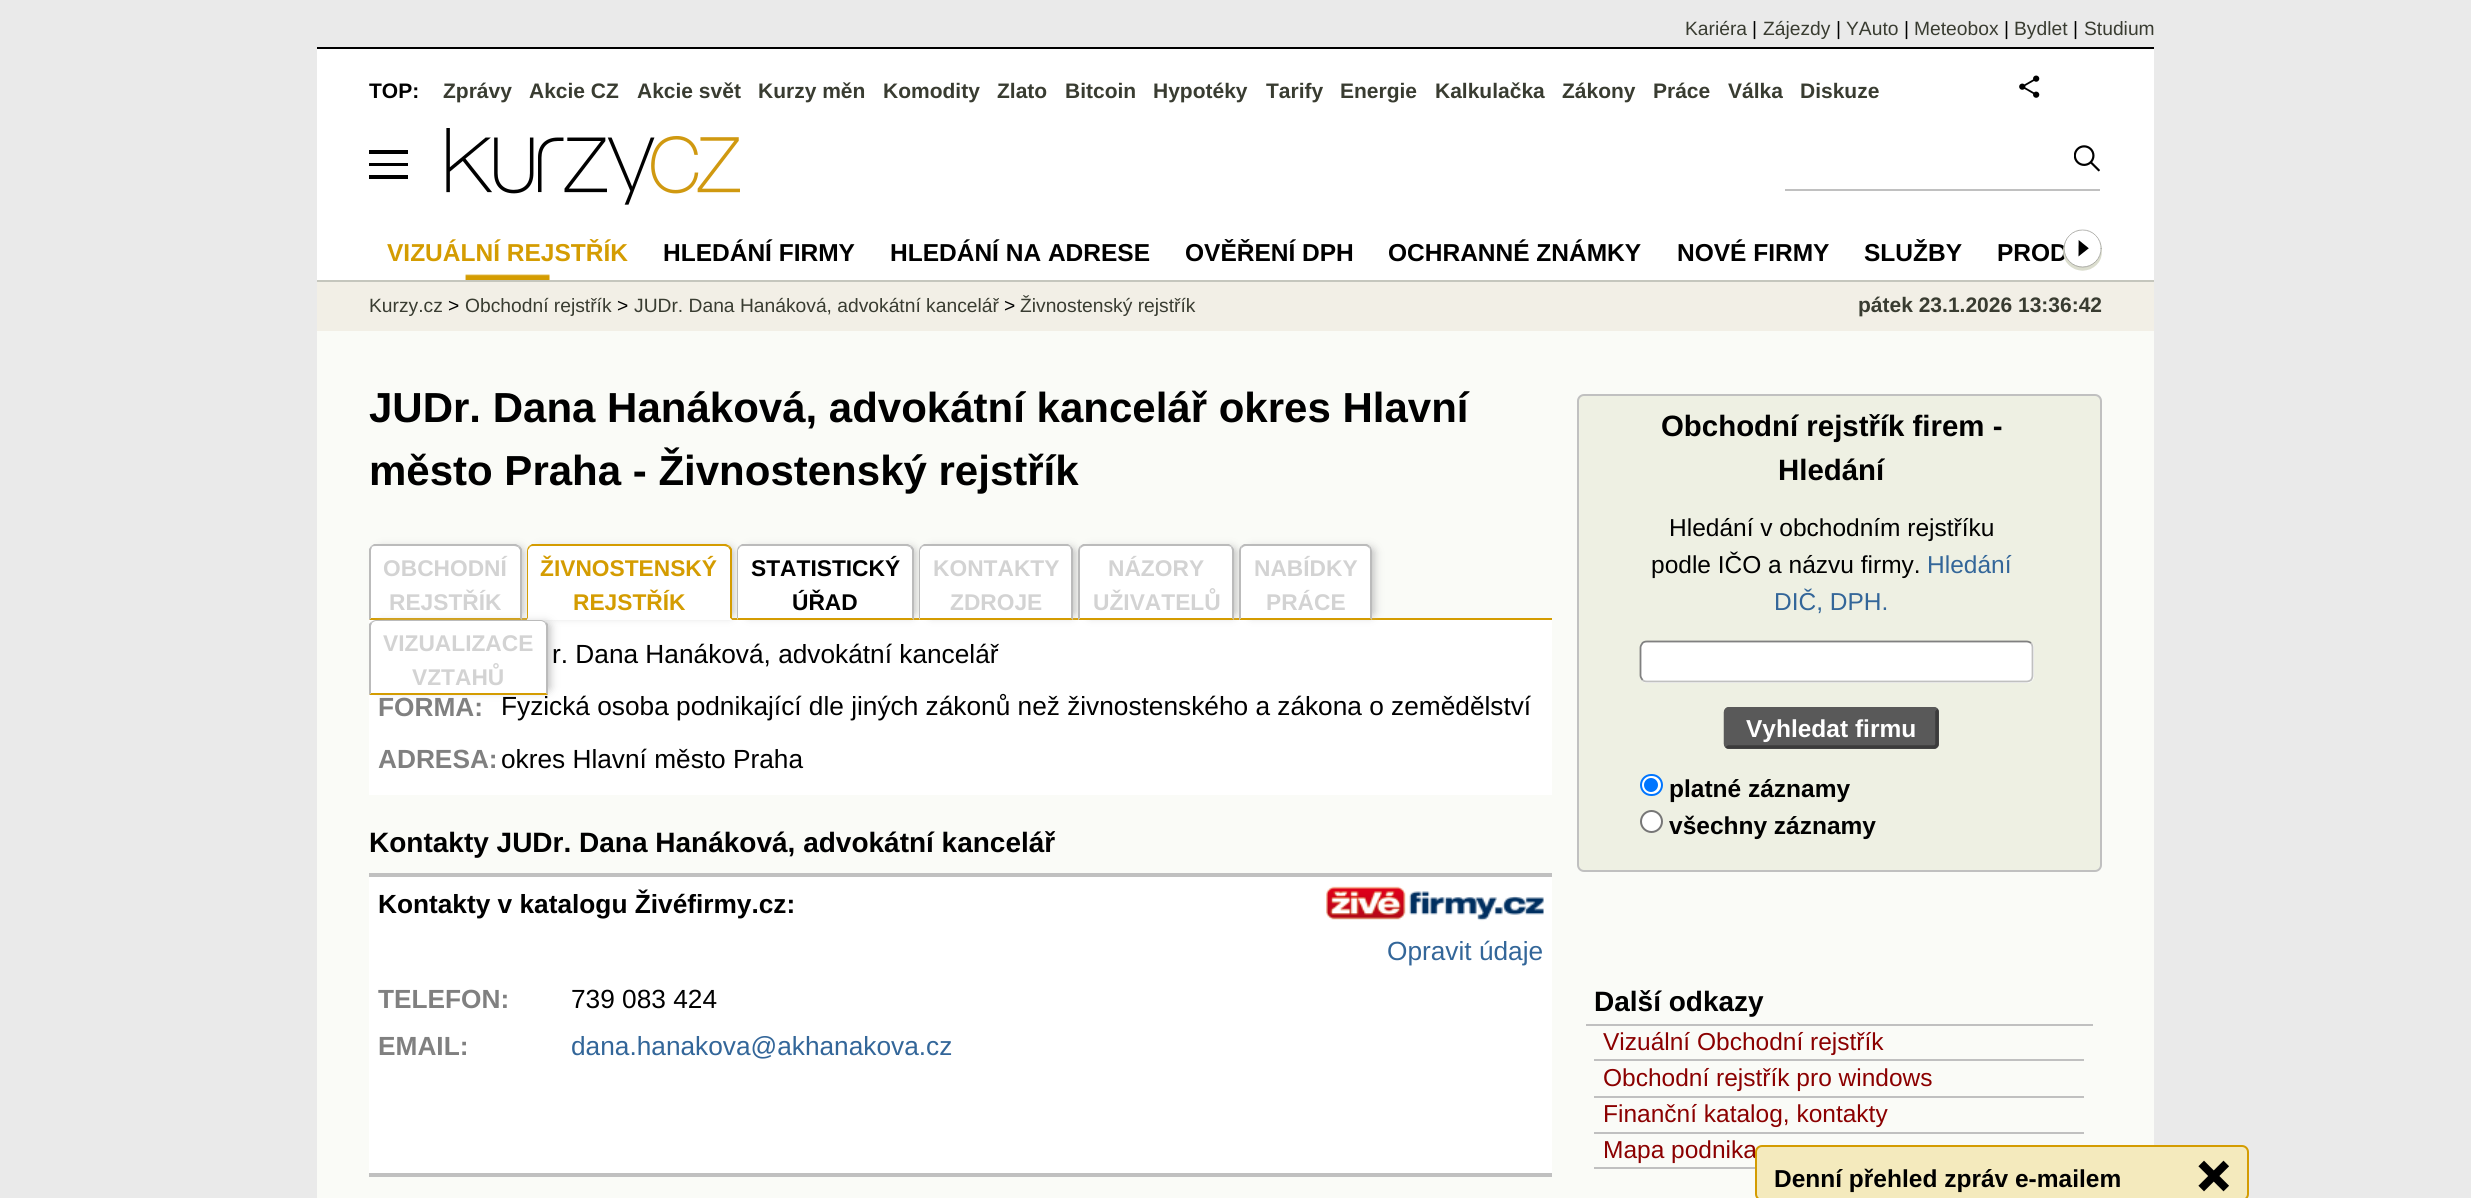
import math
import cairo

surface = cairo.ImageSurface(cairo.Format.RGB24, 2471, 1198)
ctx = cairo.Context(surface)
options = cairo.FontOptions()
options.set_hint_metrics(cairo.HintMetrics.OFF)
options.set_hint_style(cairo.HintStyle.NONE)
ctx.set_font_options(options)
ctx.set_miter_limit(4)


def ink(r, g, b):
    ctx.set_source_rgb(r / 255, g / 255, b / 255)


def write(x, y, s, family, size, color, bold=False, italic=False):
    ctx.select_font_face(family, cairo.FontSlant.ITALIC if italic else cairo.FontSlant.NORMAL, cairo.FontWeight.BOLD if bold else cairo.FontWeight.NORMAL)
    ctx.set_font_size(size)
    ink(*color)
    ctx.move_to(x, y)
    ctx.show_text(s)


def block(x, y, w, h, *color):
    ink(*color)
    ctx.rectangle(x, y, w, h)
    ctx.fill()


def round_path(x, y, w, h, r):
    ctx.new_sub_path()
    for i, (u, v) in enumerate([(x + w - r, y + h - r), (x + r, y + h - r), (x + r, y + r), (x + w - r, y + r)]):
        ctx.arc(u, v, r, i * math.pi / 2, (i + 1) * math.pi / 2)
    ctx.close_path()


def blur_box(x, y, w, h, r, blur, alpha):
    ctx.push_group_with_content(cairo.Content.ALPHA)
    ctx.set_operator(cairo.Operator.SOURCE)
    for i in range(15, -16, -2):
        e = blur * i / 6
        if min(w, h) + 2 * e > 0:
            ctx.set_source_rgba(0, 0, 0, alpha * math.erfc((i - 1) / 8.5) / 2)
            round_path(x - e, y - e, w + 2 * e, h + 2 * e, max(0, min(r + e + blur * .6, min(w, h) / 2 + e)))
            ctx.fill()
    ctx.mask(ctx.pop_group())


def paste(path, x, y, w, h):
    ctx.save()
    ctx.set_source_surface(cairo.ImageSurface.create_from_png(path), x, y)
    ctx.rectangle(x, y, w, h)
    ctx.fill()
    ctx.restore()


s1 = dict(family="Liberation Sans", size=19.25, color=(57, 60, 49))
s2 = dict(family="Liberation Sans", size=19.25, color=(0, 0, 0))
s3 = dict(family="Liberation Sans", size=21, color=(0, 0, 0), bold=True)
s4 = dict(family="Liberation Sans", size=21, color=(57, 60, 49), bold=True)
s5 = dict(family="Liberation Sans", size=42, color=(0, 0, 0), bold=True)
s6 = dict(family="Liberation Sans", size=22.75, color=(211, 211, 211), bold=True)
s7 = dict(family="Liberation Sans", size=22.75, color=(212, 156, 1), bold=True)
s8 = dict(family="Liberation Sans", size=22.75, color=(0, 0, 0), bold=True)
s9 = dict(family="Liberation Sans", size=26.25, color=(0, 0, 0))
s10 = dict(family="Liberation Sans", size=26.25, color=(128, 128, 128), bold=True)
s11 = dict(family="Liberation Sans", size=28, color=(0, 0, 0), bold=True)
s12 = dict(family="Liberation Sans", size=26.25, color=(0, 0, 0), bold=True)
s13 = dict(family="Liberation Sans", size=26.25, color=(51, 102, 153))
s14 = dict(family="Liberation Sans", size=29.4, color=(0, 0, 0), bold=True)
s15 = dict(family="Liberation Sans", size=24.5, color=(0, 0, 0))
s16 = dict(family="Liberation Sans", size=24.5, color=(51, 102, 153))
s17 = dict(family="Liberation Sans", size=24.5, color=(255, 255, 255), bold=True)
s18 = dict(family="Liberation Sans", size=24.5, color=(0, 0, 0), bold=True)
s19 = dict(family="Liberation Sans", size=24.5, color=(139, 0, 0))
s20 = dict(family="Liberation Sans", size=24.5, color=(212, 156, 1), bold=True)

ink(234, 234, 234)
ctx.paint()
block(317, 331, 1837, 867, 250, 251, 247)
block(317, 47, 1837, 2, 0, 0, 0)
write(1685, 35, "Kariéra", **s1)
write(1752, 35, "|", **s2)
write(1763, 35, "Zájezdy", **s1)
write(1836, 35, "|", **s2)
write(1846, 35, "YAuto", **s1)
write(1904, 35, "|", **s2)
write(1914, 35, "Meteobox", **s1)
write(2004, 35, "|", **s2)
write(2014, 35, "Bydlet", **s1)
write(2073, 35, "|", **s2)
write(2084, 35, "Studium", **s1)
block(317, 49, 1837, 231, 255, 255, 255)
block(369, 150, 39, 4, 0, 0, 0)
paste("pic1.png", 446, 128, 294, 77)
block(1785, 189, 315, 2, 192, 192, 192)
paste("pic2.png", 2074, 145, 26, 27)
block(369, 163, 39, 3, 0, 0, 0)
block(369, 175, 39, 4, 0, 0, 0)
write(369, 98, "TOP:", **s3)
write(443, 98, "Zprávy", **s4)
write(529, 98, "Akcie CZ", **s4)
write(637, 98, "Akcie svět", **s4)
write(758, 98, "Kurzy měn", **s4)
write(883, 98, "Komodity", **s4)
write(997, 98, "Zlato", **s4)
write(1065, 98, "Bitcoin", **s4)
write(1153, 98, "Hypotéky", **s4)
write(1266, 98, "Tarify", **s4)
write(1340, 98, "Energie", **s4)
write(1435, 98, "Kalkulačka", **s4)
write(1562, 98, "Zákony", **s4)
write(1653, 98, "Práce", **s4)
write(1728, 98, "Válka", **s4)
write(1800, 98, "Diskuze", **s4)
paste("pic3.png", 2019, 75, 21, 23)
block(317, 282, 1837, 49, 242, 239, 230)
write(369, 312, "Kurzy.cz", **s1)
write(448, 312, ">", **s2)
write(465, 312, "Obchodní rejstřík", **s1)
write(617, 312, ">", **s2)
write(634, 312, "JUDr. Dana Hanáková, advokátní kancelář", **s1)
write(1004, 312, ">", **s2)
write(1020, 312, "Živnostenský rejstřík", **s1)
write(1858, 312, "pátek 23.1.2026 13:36:42", **s4)
write(369, 422, "JUDr. Dana Hanáková, advokátní kancelář okres Hlavní", **s5)
write(369, 485, "město Praha - Živnostenský rejstřík", **s5)
block(522, 618, 1030, 2, 212, 156, 1)
block(369, 620, 1183, 175, 255, 255, 255)
ink(187, 187, 187)
blur_box(378, 548, 145, 68, 4, 4.5, 1)
ink(255, 255, 255)
ctx.new_path()
ctx.move_to(376, 544)
ctx.line_to(515, 544)
ctx.curve_to(519, 544, 522, 547, 522, 551)
ctx.line_to(522, 620)
ctx.line_to(369, 620)
ctx.line_to(369, 551)
ctx.curve_to(369, 547, 372, 544, 376, 544)
ctx.close_path()
ctx.fill()
ink(187, 187, 187)
ctx.new_path()
ctx.move_to(376, 546)
ctx.curve_to(374, 546, 373, 546, 372, 547)
ctx.line_to(371, 546)
ctx.line_to(374, 544)
ctx.line_to(516, 544)
ctx.line_to(520, 546)
ctx.line_to(518, 547)
ctx.curve_to(517, 547, 516, 546, 514, 546)
ctx.close_path()
ctx.fill()
ctx.new_path()
ctx.move_to(520, 546)
ctx.line_to(522, 549)
ctx.line_to(522, 620)
ctx.line_to(520, 618)
ctx.line_to(520, 550)
ctx.line_to(518, 547)
ctx.close_path()
ctx.fill()
ink(212, 156, 1)
ctx.new_path()
ctx.move_to(522, 620)
ctx.line_to(520, 618)
ctx.line_to(371, 618)
ctx.line_to(369, 620)
ctx.close_path()
ctx.fill()
ink(187, 187, 187)
ctx.new_path()
ctx.move_to(369, 620)
ctx.line_to(369, 549)
ctx.line_to(371, 546)
ctx.line_to(372, 547)
ctx.line_to(371, 550)
ctx.line_to(371, 618)
ctx.close_path()
ctx.fill()
write(383, 576, "OBCHODNÍ", **s6)
write(389, 610, "REJSTŘÍK", **s6)
ink(187, 187, 187)
blur_box(536, 548, 197, 68, 4, 4.5, 1)
ink(255, 255, 255)
ctx.new_path()
ctx.move_to(534, 544)
ctx.line_to(725, 544)
ctx.curve_to(729, 544, 732, 547, 732, 551)
ctx.line_to(732, 620)
ctx.line_to(527, 620)
ctx.line_to(527, 551)
ctx.curve_to(527, 547, 530, 544, 534, 544)
ctx.close_path()
ctx.fill()
ink(212, 156, 1)
ctx.new_path()
ctx.move_to(534, 546)
ctx.curve_to(532, 546, 531, 546, 530, 547)
ctx.line_to(529, 546)
ctx.line_to(532, 544)
ctx.line_to(726, 544)
ctx.line_to(730, 546)
ctx.line_to(728, 547)
ctx.curve_to(727, 547, 726, 546, 724, 546)
ctx.close_path()
ctx.fill()
ctx.new_path()
ctx.move_to(730, 546)
ctx.line_to(732, 549)
ctx.line_to(732, 620)
ctx.line_to(730, 618)
ctx.line_to(730, 550)
ctx.line_to(728, 547)
ctx.close_path()
ctx.fill()
ink(255, 255, 255)
ctx.new_path()
ctx.move_to(732, 620)
ctx.line_to(527, 620)
ctx.line_to(528, 618)
ctx.line_to(730, 618)
ctx.close_path()
ctx.fill()
ink(212, 156, 1)
ctx.new_path()
ctx.move_to(527, 619)
ctx.line_to(527, 551)
ctx.curve_to(527, 549, 528, 547, 529, 546)
ctx.line_to(530, 547)
ctx.line_to(528, 550)
ctx.line_to(528, 618)
ctx.close_path()
ctx.fill()
write(540, 576, "ŽIVNOSTENSKÝ", **s7)
write(573, 610, "REJSTŘÍK", **s7)
ink(187, 187, 187)
blur_box(746, 548, 169, 68, 4, 4.5, 1)
ink(255, 255, 255)
ctx.new_path()
ctx.move_to(744, 544)
ctx.line_to(907, 544)
ctx.curve_to(911, 544, 914, 547, 914, 551)
ctx.line_to(914, 620)
ctx.line_to(737, 620)
ctx.line_to(737, 551)
ctx.curve_to(737, 547, 740, 544, 744, 544)
ctx.close_path()
ctx.fill()
ink(187, 187, 187)
ctx.new_path()
ctx.move_to(744, 546)
ctx.curve_to(742, 546, 741, 546, 740, 547)
ctx.line_to(739, 546)
ctx.line_to(742, 544)
ctx.line_to(908, 544)
ctx.line_to(912, 546)
ctx.line_to(910, 547)
ctx.curve_to(909, 547, 908, 546, 906, 546)
ctx.close_path()
ctx.fill()
ctx.new_path()
ctx.move_to(912, 546)
ctx.line_to(914, 549)
ctx.line_to(914, 620)
ctx.line_to(912, 618)
ctx.line_to(912, 550)
ctx.line_to(910, 547)
ctx.close_path()
ctx.fill()
ink(212, 156, 1)
ctx.new_path()
ctx.move_to(914, 620)
ctx.line_to(737, 620)
ctx.line_to(738, 618)
ctx.line_to(912, 618)
ctx.close_path()
ctx.fill()
ink(187, 187, 187)
ctx.new_path()
ctx.move_to(737, 619)
ctx.line_to(737, 551)
ctx.curve_to(737, 549, 738, 547, 739, 546)
ctx.line_to(740, 547)
ctx.line_to(738, 550)
ctx.line_to(738, 618)
ctx.close_path()
ctx.fill()
write(751, 576, "STATISTICKÝ", **s8)
write(792, 610, "ÚŘAD", **s8)
ink(187, 187, 187)
blur_box(928, 548, 147, 68, 4, 4.5, 1)
ink(255, 255, 255)
ctx.new_path()
ctx.move_to(926, 544)
ctx.line_to(1066, 544)
ctx.curve_to(1070, 544, 1073, 547, 1073, 551)
ctx.line_to(1073, 620)
ctx.line_to(919, 620)
ctx.line_to(919, 551)
ctx.curve_to(919, 547, 922, 544, 926, 544)
ctx.close_path()
ctx.fill()
ink(187, 187, 187)
ctx.new_path()
ctx.move_to(926, 546)
ctx.curve_to(924, 546, 923, 546, 922, 547)
ctx.line_to(921, 546)
ctx.line_to(924, 544)
ctx.line_to(1068, 544)
ctx.line_to(1071, 546)
ctx.line_to(1070, 547)
ctx.curve_to(1069, 546, 1068, 546, 1066, 546)
ctx.close_path()
ctx.fill()
ctx.new_path()
ctx.move_to(1071, 546)
ctx.line_to(1073, 549)
ctx.line_to(1073, 620)
ctx.line_to(1071, 618)
ctx.line_to(1071, 550)
ctx.line_to(1070, 547)
ctx.close_path()
ctx.fill()
ink(212, 156, 1)
ctx.new_path()
ctx.move_to(1073, 620)
ctx.line_to(919, 620)
ctx.line_to(920, 618)
ctx.line_to(1071, 618)
ctx.close_path()
ctx.fill()
ink(187, 187, 187)
ctx.new_path()
ctx.move_to(919, 619)
ctx.line_to(919, 551)
ctx.curve_to(919, 549, 920, 547, 921, 546)
ctx.line_to(922, 547)
ctx.line_to(920, 550)
ctx.line_to(920, 618)
ctx.close_path()
ctx.fill()
write(933, 576, "KONTAKTY", **s6)
write(950, 610, "ZDROJE", **s6)
ink(187, 187, 187)
blur_box(1087, 548, 149, 68, 4, 4.5, 1)
ink(255, 255, 255)
ctx.new_path()
ctx.move_to(1085, 544)
ctx.line_to(1227, 544)
ctx.curve_to(1231, 544, 1234, 547, 1234, 551)
ctx.line_to(1234, 620)
ctx.line_to(1078, 620)
ctx.line_to(1078, 551)
ctx.curve_to(1078, 547, 1081, 544, 1085, 544)
ctx.close_path()
ctx.fill()
ink(187, 187, 187)
ctx.new_path()
ctx.move_to(1085, 546)
ctx.curve_to(1083, 546, 1082, 547, 1081, 548)
ctx.line_to(1080, 546)
ctx.line_to(1083, 544)
ctx.line_to(1229, 544)
ctx.line_to(1232, 546)
ctx.line_to(1231, 547)
ctx.curve_to(1230, 546, 1228, 546, 1227, 546)
ctx.close_path()
ctx.fill()
ctx.new_path()
ctx.move_to(1232, 546)
ctx.line_to(1234, 549)
ctx.line_to(1234, 620)
ctx.line_to(1232, 618)
ctx.line_to(1232, 550)
ctx.line_to(1231, 547)
ctx.close_path()
ctx.fill()
ink(212, 156, 1)
ctx.new_path()
ctx.move_to(1234, 620)
ctx.line_to(1232, 618)
ctx.line_to(1080, 618)
ctx.line_to(1078, 620)
ctx.close_path()
ctx.fill()
ink(187, 187, 187)
ctx.new_path()
ctx.move_to(1078, 620)
ctx.line_to(1080, 618)
ctx.line_to(1080, 551)
ctx.curve_to(1080, 550, 1080, 548, 1081, 548)
ctx.line_to(1080, 546)
ctx.curve_to(1079, 547, 1078, 549, 1078, 551)
ctx.close_path()
ctx.fill()
write(1108, 576, "NÁZORY", **s6)
write(1093, 610, "UŽIVATELŮ", **s6)
ink(187, 187, 187)
blur_box(1248, 548, 126, 68, 4, 4.5, 1)
ink(255, 255, 255)
ctx.new_path()
ctx.move_to(1246, 544)
ctx.line_to(1365, 544)
ctx.curve_to(1369, 544, 1372, 547, 1372, 551)
ctx.line_to(1372, 620)
ctx.line_to(1239, 620)
ctx.line_to(1239, 551)
ctx.curve_to(1239, 547, 1242, 544, 1246, 544)
ctx.close_path()
ctx.fill()
ink(187, 187, 187)
ctx.new_path()
ctx.move_to(1246, 546)
ctx.curve_to(1244, 546, 1243, 547, 1242, 548)
ctx.line_to(1241, 546)
ctx.line_to(1244, 544)
ctx.line_to(1367, 544)
ctx.line_to(1370, 546)
ctx.line_to(1369, 548)
ctx.curve_to(1368, 547, 1367, 546, 1365, 546)
ctx.close_path()
ctx.fill()
ctx.new_path()
ctx.move_to(1372, 620)
ctx.line_to(1372, 551)
ctx.curve_to(1372, 549, 1371, 547, 1370, 546)
ctx.line_to(1369, 548)
ctx.curve_to(1370, 548, 1370, 550, 1370, 551)
ctx.line_to(1370, 618)
ctx.close_path()
ctx.fill()
ink(212, 156, 1)
ctx.new_path()
ctx.move_to(1372, 620)
ctx.line_to(1239, 620)
ctx.line_to(1241, 618)
ctx.line_to(1370, 618)
ctx.close_path()
ctx.fill()
ink(187, 187, 187)
ctx.new_path()
ctx.move_to(1239, 620)
ctx.line_to(1241, 618)
ctx.line_to(1241, 551)
ctx.curve_to(1241, 550, 1241, 548, 1242, 548)
ctx.line_to(1241, 546)
ctx.curve_to(1240, 547, 1239, 549, 1239, 551)
ctx.close_path()
ctx.fill()
write(1254, 576, "NABÍDKY", **s6)
write(1266, 610, "PRÁCE", **s6)
ink(187, 187, 187)
blur_box(378, 623, 172, 68, 4, 4.5, 1)
write(501, 715, "Fyzická osoba podnikající dle jiných zákonů než živnostenského a zákona o zemědělství", **s9)
ink(255, 255, 255)
ctx.new_path()
ctx.move_to(376, 620)
ctx.line_to(541, 620)
ctx.curve_to(545, 620, 548, 623, 548, 627)
ctx.line_to(548, 695)
ctx.line_to(369, 695)
ctx.line_to(369, 627)
ctx.curve_to(369, 623, 372, 620, 376, 620)
ctx.close_path()
ctx.fill()
ink(187, 187, 187)
ctx.new_path()
ctx.move_to(376, 620)
ctx.curve_to(374, 620, 373, 621, 371, 622)
ctx.line_to(372, 623)
ctx.curve_to(373, 622, 375, 621, 376, 621)
ctx.line_to(541, 621)
ctx.curve_to(542, 621, 544, 622, 545, 623)
ctx.line_to(546, 622)
ctx.curve_to(544, 621, 543, 620, 541, 620)
ctx.close_path()
ctx.fill()
ctx.new_path()
ctx.move_to(546, 622)
ctx.line_to(548, 624)
ctx.line_to(548, 695)
ctx.line_to(546, 693)
ctx.line_to(546, 626)
ctx.curve_to(546, 625, 545, 624, 545, 623)
ctx.close_path()
ctx.fill()
ink(212, 156, 1)
ctx.new_path()
ctx.move_to(548, 695)
ctx.line_to(546, 693)
ctx.line_to(371, 693)
ctx.line_to(369, 695)
ctx.close_path()
ctx.fill()
ink(187, 187, 187)
ctx.new_path()
ctx.move_to(369, 695)
ctx.line_to(371, 693)
ctx.line_to(371, 626)
ctx.curve_to(371, 625, 372, 624, 372, 623)
ctx.line_to(371, 622)
ctx.line_to(369, 624)
ctx.close_path()
ctx.fill()
write(383, 651, "VIZUALIZACE", **s6)
write(412, 685, "VZTAHŮ", **s6)
write(552, 663, "r. Dana Hanáková, advokátní kancelář", **s9)
write(378, 716, "FORMA:", **s10)
write(378, 768, "ADRESA:", **s10)
write(501, 768, "okres Hlavní město Praha", **s9)
write(369, 852, "Kontakty JUDr. Dana Hanáková, advokátní kancelář", **s11)
block(369, 877, 1183, 296, 255, 255, 255)
block(369, 873, 1183, 4, 192, 192, 192)
block(369, 1173, 1183, 4, 192, 192, 192)
write(378, 913, "Kontakty v katalogu Živéfirmy.cz:", **s12)
paste("pic4.png", 1326, 886, 218, 35)
write(1387, 960, "Opravit údaje", **s13)
write(378, 1008, "TELEFON:", **s10)
write(571, 1008, "739 083 424", **s9)
write(378, 1055, "EMAIL:", **s10)
write(571, 1055, "dana.hanakova@akhanakova.cz", **s13)
ink(238, 240, 227)
round_path(1578, 395, 523, 476, 6)
ctx.fill_preserve()
ink(192, 192, 192)
ctx.stroke()
write(1661, 436, "Obchodní rejstřík firem -", **s14)
write(1778, 480, "Hledání", **s14)
write(1669, 536, "Hledání v obchodním rejstříku", **s15)
write(1651, 573, "podle IČO a názvu firmy.", **s15)
write(1927, 573, "Hledání", **s16)
write(1774, 610, "DIČ, DPH.", **s16)
ink(255, 255, 255)
round_path(1640, 641, 394, 42, 7)
ctx.fill()
ctx.new_path()
ctx.move_to(2031, 643)
ctx.curve_to(2032, 644.5, 2032.5, 646, 2032.5, 647.5)
ctx.line_to(2032.5, 675.5)
ctx.curve_to(2032.5, 677, 2032, 678.5, 2031, 680)
ctx.curve_to(2029.5, 681, 2028, 681.5, 2026.5, 681.5)
ctx.line_to(1647, 681.5)
ctx.curve_to(1645, 681.5, 1643.5, 681, 1642.5, 680)
ink(192, 192, 192)
ctx.set_line_width(1.8)
ctx.stroke()
ctx.new_path()
ctx.move_to(1642.5, 680)
ctx.curve_to(1641.5, 678.5, 1640.5, 677, 1640.5, 675.5)
ctx.line_to(1640.5, 647.5)
ctx.curve_to(1640.5, 646, 1641.5, 644.5, 1642.5, 643)
ctx.curve_to(1643.5, 642, 1645, 641.5, 1647, 641.5)
ctx.line_to(2026.5, 641.5)
ctx.curve_to(2028, 641.5, 2029.5, 642, 2031, 643)
ink(128, 128, 128)
ctx.stroke()
ink(89, 89, 89)
round_path(1724, 707, 215, 42, 5)
ctx.fill()
ctx.new_path()
ctx.move_to(1936, 710)
ctx.curve_to(1937, 710.5, 1937, 711.5, 1937, 712)
ctx.line_to(1937, 744)
ctx.curve_to(1937, 744.5, 1937, 745.5, 1936, 746)
ctx.curve_to(1935.5, 747, 1934.5, 747, 1934, 747)
ctx.line_to(1729, 747)
ctx.curve_to(1728, 747, 1727, 747, 1726.5, 746)
ink(59, 59, 59)
ctx.set_line_width(3.5)
ctx.stroke()
ctx.new_path()
ctx.move_to(1726.5, 746)
ctx.curve_to(1726, 745.5, 1725.5, 744.5, 1725.5, 744)
ctx.line_to(1725.5, 712)
ctx.curve_to(1725.5, 711.5, 1726, 710.5, 1726.5, 710)
ctx.curve_to(1727, 709, 1728, 709, 1729, 709)
ctx.line_to(1934, 709)
ctx.curve_to(1934.5, 709, 1935.5, 709, 1936, 710)
ink(89, 89, 89)
ctx.stroke()
write(1746, 737, "Vyhledat firmu", **s17)
round_path(1641, 775, 21, 20, 10)
ctx.fill_preserve()
ink(0, 117, 255)
ctx.set_line_width(2)
ctx.stroke()
ctx.arc(1651, 785, 7, 0, 2 * math.pi)
ctx.fill()
write(1669, 797, "platné záznamy", **s18)
ink(255, 255, 255)
ctx.new_path()
ctx.arc(1651.5, 821.5, 10.5, 0, 2 * math.pi)
ctx.fill_preserve()
ink(118, 118, 118)
ctx.stroke()
write(1669, 834, "všechny záznamy", **s18)
block(1586, 1024, 507, 2, 192, 192, 192)
write(1594, 1011, "Další odkazy", **s11)
block(1594, 1059, 490, 2, 192, 192, 192)
write(1603, 1050, "Vizuální Obchodní rejstřík", **s19)
block(1594, 1096, 490, 2, 192, 192, 192)
write(1603, 1086, "Obchodní rejstřík pro windows", **s19)
block(1594, 1132, 490, 2, 192, 192, 192)
write(1603, 1122, "Finanční katalog, kontakty", **s19)
block(1594, 1167, 161, 2, 192, 192, 192)
write(1603, 1158, "Mapa podnika", **s19)
block(317, 280, 1837, 2, 197, 198, 189)
paste("pic5.png", 465, 274, 85, 6)
write(387, 261, "VIZUÁLNÍ REJSTŘÍK", **s20)
write(663, 261, "HLEDÁNÍ FIRMY", **s18)
write(890, 261, "HLEDÁNÍ NA ADRESE", **s18)
write(1185, 261, "OVĚŘENÍ DPH", **s18)
write(1388, 261, "OCHRANNÉ ZNÁMKY", **s18)
write(1677, 261, "NOVÉ FIRMY", **s18)
write(1864, 261, "SLUŽBY", **s18)
write(1997, 261, "PROD", **s18)
paste("pic6.png", 2063, 229, 39, 42)
ink(244, 234, 189)
round_path(1756, 1146, 492, 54, 6)
ctx.fill_preserve()
ink(212, 156, 1)
ctx.stroke()
write(1774, 1187, "Denní přehled zpráv e-mailem", **s18)
paste("pic7.png", 2198, 1160, 31, 32)
surface.write_to_png("screenshot.png")
